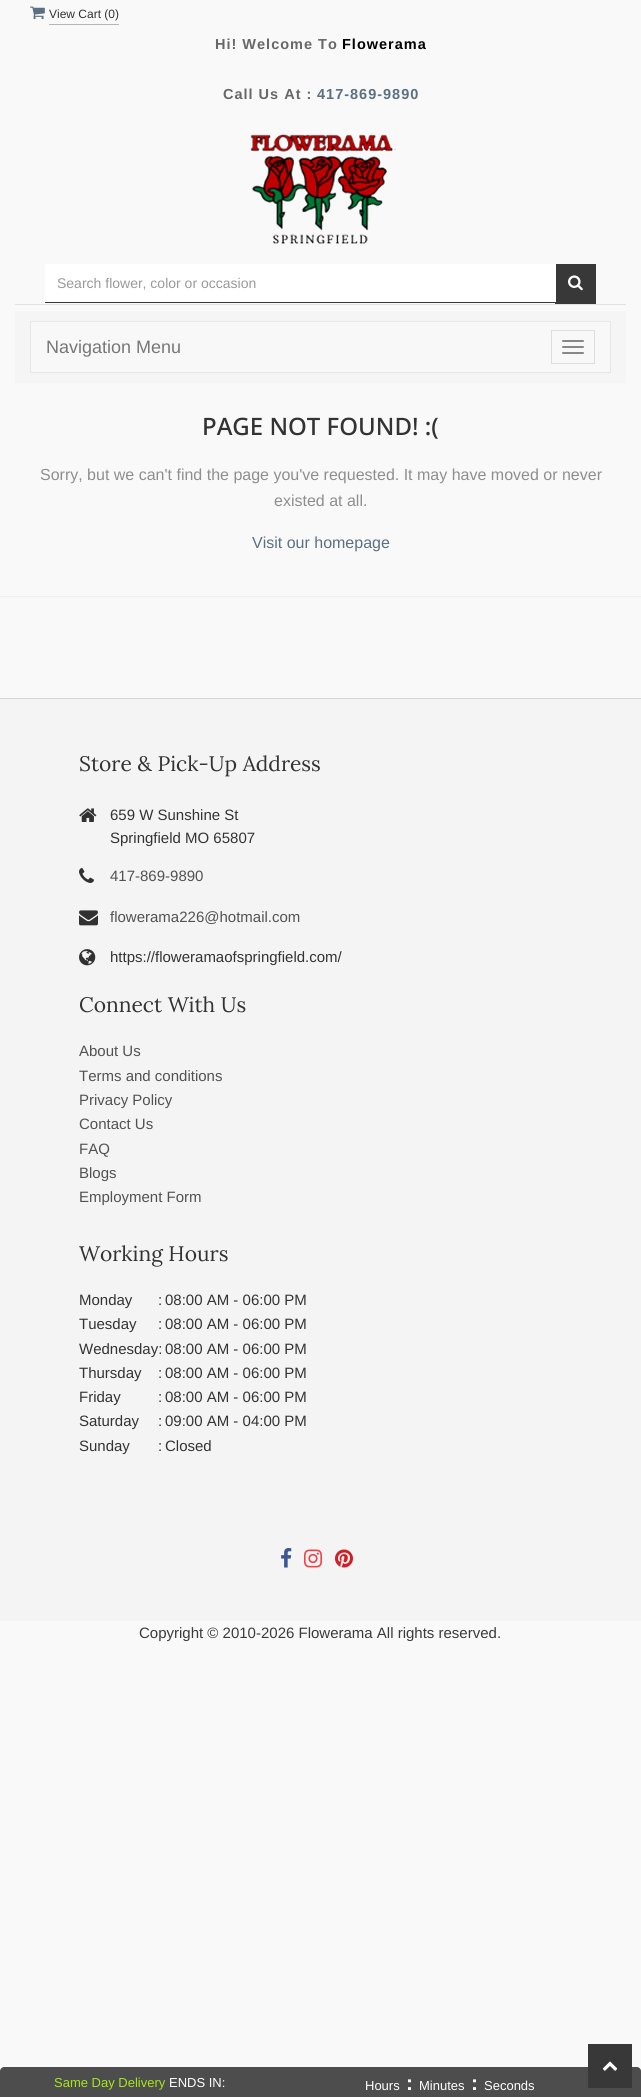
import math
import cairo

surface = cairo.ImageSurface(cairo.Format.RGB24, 641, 2097)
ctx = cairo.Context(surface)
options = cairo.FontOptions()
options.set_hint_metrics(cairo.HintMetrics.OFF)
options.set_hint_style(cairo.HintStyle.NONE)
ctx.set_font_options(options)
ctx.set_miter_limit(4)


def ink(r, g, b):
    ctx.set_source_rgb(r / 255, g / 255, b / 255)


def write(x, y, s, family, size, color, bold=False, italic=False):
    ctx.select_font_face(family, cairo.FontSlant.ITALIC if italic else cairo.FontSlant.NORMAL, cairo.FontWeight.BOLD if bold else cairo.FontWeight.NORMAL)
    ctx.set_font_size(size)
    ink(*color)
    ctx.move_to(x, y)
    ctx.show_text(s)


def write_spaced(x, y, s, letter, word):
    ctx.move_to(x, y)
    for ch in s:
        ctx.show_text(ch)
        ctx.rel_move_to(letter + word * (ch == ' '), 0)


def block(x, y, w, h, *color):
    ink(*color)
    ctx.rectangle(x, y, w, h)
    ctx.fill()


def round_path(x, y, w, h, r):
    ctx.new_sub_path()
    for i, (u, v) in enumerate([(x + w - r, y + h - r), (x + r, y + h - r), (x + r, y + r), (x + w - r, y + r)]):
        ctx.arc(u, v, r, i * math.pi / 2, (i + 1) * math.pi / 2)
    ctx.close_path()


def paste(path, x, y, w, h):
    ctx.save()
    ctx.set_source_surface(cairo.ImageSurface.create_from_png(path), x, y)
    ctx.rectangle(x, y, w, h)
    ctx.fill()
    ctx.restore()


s1 = dict(family="Liberation Sans", size=12, color=(51, 51, 51))
s2 = dict(family="Liberation Sans", size=14, color=(153, 153, 153))
s3 = dict(family="Liberation Sans", size=18, color=(119, 119, 119))
s4 = dict(family="Noto Sans Medium", size=24, color=(51, 51, 51))
s5 = dict(family="Liberation Sans", size=16, color=(142, 142, 142))
s6 = dict(family="Liberation Sans", size=16, color=(91, 112, 131))
s7 = dict(family="Lora", size=21, color=(51, 51, 51))
s8 = dict(family="Liberation Sans", size=15, color=(51, 51, 51))
s9 = dict(family="Liberation Sans", size=15, color=(82, 82, 82))
s10 = dict(family="Liberation Sans", size=15, color=(60, 58, 58))
s11 = dict(family="Liberation Sans", size=13, color=(164, 232, 24))
s12 = dict(family="Liberation Sans", size=13, color=(255, 255, 255))
s13 = dict(family="Liberation Sans", size=21, color=(255, 255, 255), bold=True)

ink(249, 249, 249)
ctx.paint()
block(15, 304, 611, 1, 226, 226, 226)
paste("pic1.png", 30, 6, 15, 14)
write(49, 18, "View Cart (0)", **s1)
block(49, 24, 70, 1, 183, 183, 183)
ctx.select_font_face("Liberation Sans", cairo.FontSlant.NORMAL, cairo.FontWeight.BOLD)
ctx.set_font_size(14.5)
ink(103, 103, 103)
write_spaced(215, 49, "Hi! Welcome To", 1, 0)
ink(0, 0, 0)
write_spaced(342, 49, "Flowerama", 1, 0)
ink(103, 103, 103)
write_spaced(223, 99, "Call Us At :", 1, 0)
ink(91, 112, 131)
write_spaced(317, 99, "417-869-9890", 1, 0)
paste("pic2.png", 250, 134, 146, 110)
block(555, 264, 41, 40, 56, 56, 56)
block(45, 264, 511, 38, 255, 255, 255)
block(45, 302, 511, 1, 56, 56, 56)
write(57, 288, "Search flower, color or occasion", **s2)
paste("pic3.png", 568, 275, 15, 16)
block(15, 311, 611, 72, 245, 245, 245)
ink(248, 248, 248)
ctx.rectangle(30.5, 321.5, 580, 51)
ctx.fill_preserve()
ink(231, 231, 231)
ctx.set_line_width(1)
ctx.stroke()
write(46, 353, "Navigation Menu", **s3)
ctx.rectangle(551.5, 330.5, 43, 33)
ink(221, 221, 221)
ctx.stroke()
ink(136, 136, 136)
round_path(562, 340, 22, 2, 1)
ctx.fill()
round_path(562, 346, 22, 2, 1)
ctx.fill()
round_path(562, 352, 22, 2, 1)
ctx.fill()
write(202, 435, "PAGE NOT FOUND! :(", **s4)
write(40, 480, "Sorry, but we can't find the page you've requested. It may have moved or never", **s5)
write(274, 506, "existed at all.", **s5)
write(252, 548, "Visit our homepage", **s6)
block(0, 596, 641, 1, 238, 238, 238)
block(0, 698, 641, 1, 212, 212, 212)
block(0, 699, 641, 922, 244, 244, 244)
write(79, 771, "Store & Pick-Up Address", **s7)
paste("pic4.png", 79, 808, 18, 14)
write(110, 820, "659 W Sunshine St", **s8)
write(110, 843, "Springfield MO 65807", **s8)
paste("pic5.png", 79, 868, 15, 15)
write(110, 881, "417-869-9890", **s9)
paste("pic6.png", 79, 910, 19, 16)
write(110, 922, "flowerama226@hotmail.com", **s9)
paste("pic7.png", 79, 949, 17, 17)
write(110, 962, "https://floweramaofspringfield.com/", **s8)
write(79, 1012, "Connect With Us", **s7)
write(79, 1056, "About Us", **s9)
write(79, 1081, "Terms and conditions", **s9)
write(79, 1105, "Privacy Policy", **s9)
write(79, 1129, "Contact Us", **s9)
write(79, 1154, "FAQ", **s9)
write(79, 1178, "Blogs", **s9)
write(79, 1202, "Employment Form", **s9)
write(79, 1261, "Working Hours", **s7)
write(79, 1305, "Monday", **s8)
write(158, 1305, ":", **s8)
write(165, 1305, "08:00 AM - 06:00 PM", **s8)
write(79, 1329, "Tuesday", **s8)
write(158, 1329, ":", **s8)
write(165, 1329, "08:00 AM - 06:00 PM", **s8)
write(79, 1354, "Wednesday:", **s8)
write(165, 1354, "08:00 AM - 06:00 PM", **s8)
write(79, 1378, "Thursday", **s8)
write(158, 1378, ":", **s8)
write(165, 1378, "08:00 AM - 06:00 PM", **s8)
write(79, 1402, "Friday", **s8)
write(158, 1402, ":", **s8)
write(165, 1402, "08:00 AM - 06:00 PM", **s8)
write(79, 1426, "Saturday", **s8)
write(158, 1426, ":", **s8)
write(165, 1426, "09:00 AM - 04:00 PM", **s8)
write(79, 1451, "Sunday", **s8)
write(158, 1451, ":", **s8)
write(165, 1451, "Closed", **s8)
paste("pic8.png", 281, 1548, 11, 20)
paste("pic9.png", 304, 1549, 18, 19)
paste("pic10.png", 335, 1549, 18, 19)
write(139, 1638, "Copyright © 2010-2026 Flowerama All rights reserved.", **s10)
ink(77, 77, 77)
ctx.new_path()
ctx.move_to(4, 2067)
ctx.line_to(637, 2067)
ctx.curve_to(639, 2067, 641, 2069, 641, 2071)
ctx.line_to(641, 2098)
ctx.line_to(0, 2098)
ctx.line_to(0, 2071)
ctx.curve_to(0, 2069, 2, 2067, 4, 2067)
ctx.close_path()
ctx.fill()
write(54, 2087, "Same Day Delivery", **s11)
write(169, 2087, "ENDS IN:", **s12)
write(365, 2090, "Hours", **s12)
write(406, 2090, ":", **s13)
write(419, 2090, "Minutes", **s12)
write(471, 2090, ":", **s13)
write(484, 2090, "Seconds", **s12)
block(588, 2044, 44, 44, 56, 56, 56)
paste("pic11.png", 602, 2061, 16, 10)
surface.write_to_png("screenshot.png")
